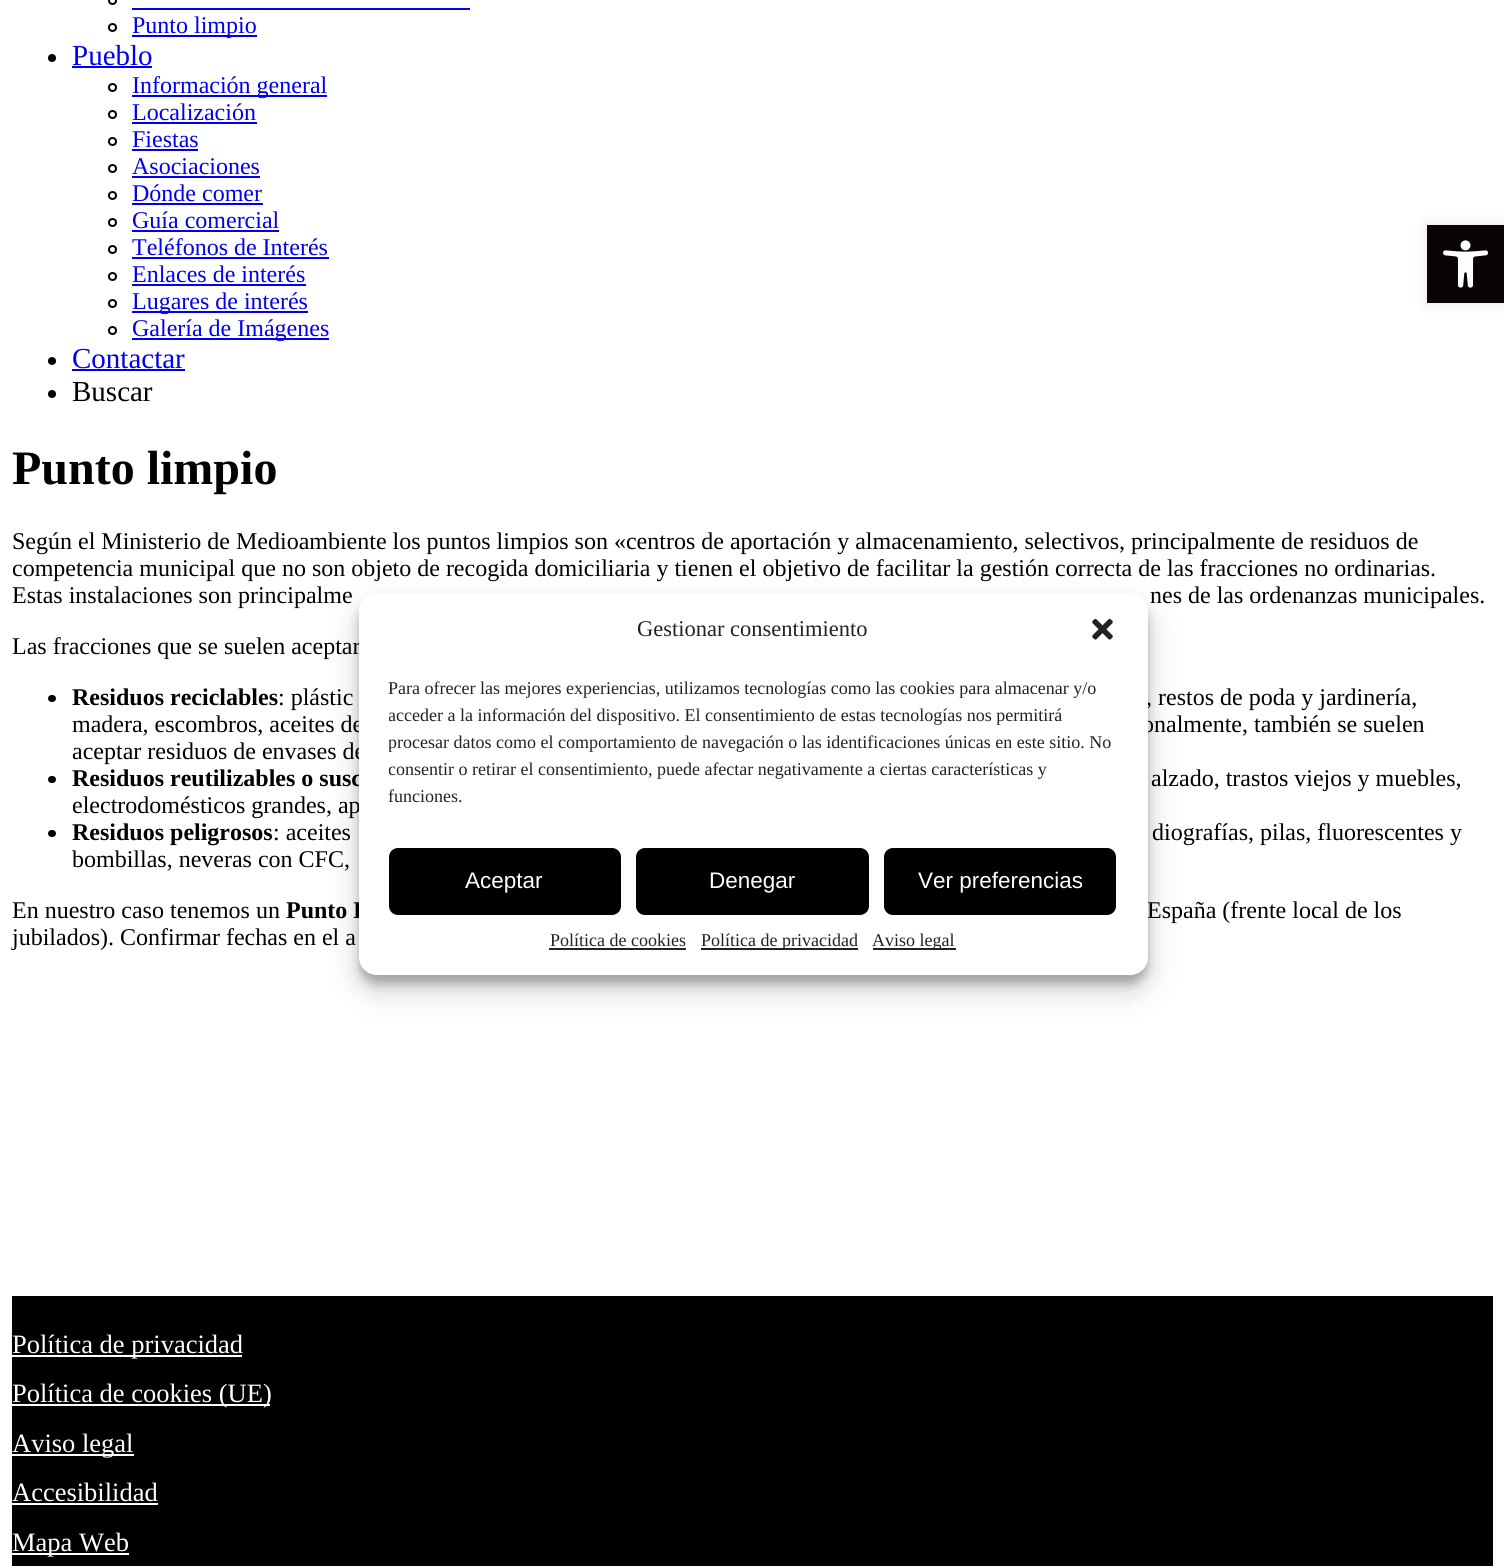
import math
import cairo

surface = cairo.ImageSurface(cairo.Format.RGB24, 1504, 1566)
ctx = cairo.Context(surface)
options = cairo.FontOptions()
options.set_hint_metrics(cairo.HintMetrics.OFF)
options.set_hint_style(cairo.HintStyle.NONE)
ctx.set_font_options(options)
ctx.set_miter_limit(4)


def ink(r, g, b):
    ctx.set_source_rgb(r / 255, g / 255, b / 255)


def write(x, y, s, family, size, color, bold=False, italic=False):
    ctx.select_font_face(family, cairo.FontSlant.ITALIC if italic else cairo.FontSlant.NORMAL, cairo.FontWeight.BOLD if bold else cairo.FontWeight.NORMAL)
    ctx.set_font_size(size)
    ink(*color)
    ctx.move_to(x, y)
    ctx.show_text(s)


def block(x, y, w, h, *color):
    ink(*color)
    ctx.rectangle(x, y, w, h)
    ctx.fill()


def round_path(x, y, w, h, r):
    ctx.new_sub_path()
    for i, (u, v) in enumerate([(x + w - r, y + h - r), (x + r, y + h - r), (x + r, y + r), (x + w - r, y + r)]):
        ctx.arc(u, v, r, i * math.pi / 2, (i + 1) * math.pi / 2)
    ctx.close_path()


def blur_box(x, y, w, h, r, blur, alpha):
    ctx.push_group_with_content(cairo.Content.ALPHA)
    ctx.set_operator(cairo.Operator.SOURCE)
    for i in range(15, -16, -2):
        e = blur * i / 6
        if min(w, h) + 2 * e > 0:
            ctx.set_source_rgba(0, 0, 0, alpha * math.erfc((i - 1) / 8.5) / 2)
            round_path(x - e, y - e, w + 2 * e, h + 2 * e, max(0, min(r + e + blur * .6, min(w, h) / 2 + e)))
            ctx.fill()
    ctx.mask(ctx.pop_group())


def paste(path, x, y, w, h):
    ctx.save()
    ctx.set_source_surface(cairo.ImageSurface.create_from_png(path), x, y)
    ctx.rectangle(x, y, w, h)
    ctx.fill()
    ctx.restore()


s1 = dict(family="Liberation Serif", size=24, color=(0, 0, 238))
s2 = dict(family="Liberation Serif", size=29, color=(0, 0, 238))
s3 = dict(family="Liberation Serif", size=29, color=(0, 0, 0))
s4 = dict(family="Liberation Serif", size=48, color=(0, 0, 0), bold=True)
s5 = dict(family="Liberation Serif", size=24, color=(0, 0, 0))
s6 = dict(family="Liberation Serif", size=24, color=(0, 0, 0), bold=True)
s7 = dict(family="Liberation Serif", size=26.5, color=(255, 255, 255))
s8 = dict(family="Liberation Serif", size=22.5, color=(34, 34, 34))
s9 = dict(family="Liberation Serif", size=18, color=(34, 34, 34))
s10 = dict(family="Liberation Sans", size=22.5, color=(255, 255, 255))

ink(255, 255, 255)
ctx.paint()
ctx.arc(112.5, 0.5, 3.5, 0, 2 * math.pi)
ink(0, 0, 0)
ctx.stroke()
block(132, 8, 338, 2, 0, 0, 238)
ctx.arc(112.5, 27.5, 3.5, 0, 2 * math.pi)
ink(0, 0, 0)
ctx.stroke()
block(132, 35, 125, 2, 0, 0, 238)
write(132, 33, "Punto limpio", **s1)
ink(0, 0, 0)
ctx.new_path()
ctx.arc(52, 58, 4, 0, 2 * math.pi)
ctx.fill()
write(72, 65, "Pueblo", **s2)
block(72, 66, 80, 2, 0, 0, 238)
ctx.new_path()
ctx.arc(112.5, 87.5, 3.5, 0, 2 * math.pi)
ink(0, 0, 0)
ctx.stroke()
block(132, 95, 195, 2, 0, 0, 238)
write(132, 93, "Información general", **s1)
ctx.new_path()
ctx.arc(112.5, 114.5, 3.5, 0, 2 * math.pi)
ink(0, 0, 0)
ctx.stroke()
write(132, 120, "Localización", **s1)
block(132, 122, 125, 2, 0, 0, 238)
ctx.new_path()
ctx.arc(112.5, 141.5, 3.5, 0, 2 * math.pi)
ink(0, 0, 0)
ctx.stroke()
write(132, 147, "Fiestas", **s1)
block(132, 149, 66, 2, 0, 0, 238)
ctx.new_path()
ctx.arc(112.5, 168.5, 3.5, 0, 2 * math.pi)
ink(0, 0, 0)
ctx.stroke()
write(132, 174, "Asociaciones", **s1)
block(132, 176, 128, 2, 0, 0, 238)
ctx.new_path()
ctx.arc(112.5, 195.5, 3.5, 0, 2 * math.pi)
ink(0, 0, 0)
ctx.stroke()
write(132, 201, "Dónde comer", **s1)
block(132, 203, 131, 2, 0, 0, 238)
ctx.new_path()
ctx.arc(112.5, 222.5, 3.5, 0, 2 * math.pi)
ink(0, 0, 0)
ctx.stroke()
write(132, 228, "Guía comercial", **s1)
block(132, 230, 147, 2, 0, 0, 238)
ctx.new_path()
ctx.arc(112.5, 249.5, 3.5, 0, 2 * math.pi)
ink(0, 0, 0)
ctx.stroke()
write(132, 255, "Teléfonos de Interés", **s1)
block(132, 257, 197, 2, 0, 0, 238)
ctx.new_path()
ctx.arc(112.5, 276.5, 3.5, 0, 2 * math.pi)
ink(0, 0, 0)
ctx.stroke()
write(132, 282, "Enlaces de interés", **s1)
block(132, 284, 174, 2, 0, 0, 238)
ctx.new_path()
ctx.arc(112.5, 303.5, 3.5, 0, 2 * math.pi)
ink(0, 0, 0)
ctx.stroke()
block(132, 311, 176, 2, 0, 0, 238)
write(132, 309, "Lugares de interés", **s1)
ctx.new_path()
ctx.arc(112.5, 330.5, 3.5, 0, 2 * math.pi)
ink(0, 0, 0)
ctx.stroke()
block(132, 338, 197, 2, 0, 0, 238)
write(132, 336, "Galería de Imágenes", **s1)
ink(0, 0, 0)
ctx.new_path()
ctx.arc(52, 361, 4, 0, 2 * math.pi)
ctx.fill()
write(72, 368, "Contactar", **s2)
block(72, 369, 113, 2, 0, 0, 238)
ink(0, 0, 0)
ctx.new_path()
ctx.arc(52, 394, 4, 0, 2 * math.pi)
ctx.fill()
write(72, 401, "Buscar", **s3)
write(12, 484, "Punto limpio", **s4)
write(12, 549, "Según el Ministerio de Medioambiente los puntos limpios son «centros de aportación y almacenamiento, selectivos, principalmente de residuos de", **s5)
write(12, 576, "competencia municipal que no son objeto de recogida domiciliaria y tienen el objetivo de facilitar la gestión correcta de las fracciones no ordinarias.", **s5)
write(12, 603, "Estas instalaciones son principalme", **s5)
write(1150, 603, "nes de las ordenanzas municipales.", **s5)
write(12, 654, "Las fracciones que se suelen aceptar", **s5)
round_path(48, 695, 8, 7, 3.5)
ctx.fill()
write(72, 705, "Residuos reciclables", **s6)
write(278, 705, ": plástic", **s5)
write(1146, 705, ", restos de poda y jardinería,", **s5)
write(72, 732, "madera, escombros, aceites de", **s5)
write(1142, 732, "onalmente, también se suelen", **s5)
write(72, 759, "aceptar residuos de envases de", **s5)
round_path(48, 776, 8, 7, 3.5)
ctx.fill()
write(72, 786, "Residuos reutilizables o susc", **s6)
write(1151, 786, "alzado, trastos viejos y muebles,", **s5)
write(72, 813, "electrodomésticos grandes, ap", **s5)
round_path(48, 830, 8, 7, 3.5)
ctx.fill()
write(72, 840, "Residuos peligrosos", **s6)
write(273, 840, ": aceites", **s5)
write(1152, 840, "diografías, pilas, fluorescentes y", **s5)
write(72, 867, "bombillas, neveras con CFC,", **s5)
write(12, 918, "En nuestro caso tenemos un", **s5)
write(286, 918, "Punto L", **s6)
write(1147, 918, "España (frente local de los", **s5)
write(12, 945, "jubilados). Confirmar fechas en el a", **s5)
block(12, 1296, 1481, 270, 0, 0, 0)
block(12, 1355, 230, 2, 255, 255, 255)
write(12, 1353, "Política de privacidad", **s7)
block(12, 1404, 258, 2, 255, 255, 255)
write(12, 1402, "Política de cookies (UE)", **s7)
block(12, 1454, 122, 2, 255, 255, 255)
write(12, 1452, "Aviso legal", **s7)
write(12, 1501, "Accesibilidad", **s7)
block(12, 1503, 146, 2, 255, 255, 255)
block(12, 1553, 117, 2, 255, 255, 255)
write(12, 1551, "Mapa Web", **s7)
ink(0, 0, 0)
blur_box(1427, 225, 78, 78, 0, 7.5, 0.1)
block(1427, 225, 77, 78, 10, 3, 3)
paste("pic1.png", 1443, 240, 46, 48)
ink(0, 0, 0)
blur_box(359, 602, 789, 382, 18, 4.5, 0.23)
blur_box(359, 608, 789, 382, 18, 15, 0.19)
ink(255, 255, 255)
round_path(359, 593, 789, 382, 18)
ctx.fill()
write(637, 636, "Gestionar consentimiento", **s8)
paste("pic2.png", 1092, 619, 21, 21)
write(388, 694, "Para ofrecer las mejores experiencias, utilizamos tecnologías como las cookies para almacenar y/o", **s9)
ctx.save()
ctx.rectangle(389, 675, 729, 143)
ctx.clip()
write(388, 721, "acceder a la información del dispositivo. El consentimiento de estas tecnologías nos permitirá", **s9)
write(388, 748, "procesar datos como el comportamiento de navegación o las identificaciones únicas en este sitio. No", **s9)
write(388, 775, "consentir o retirar el consentimiento, puede afectar negativamente a ciertas características y", **s9)
ctx.restore()
write(388, 802, "funciones.", **s9)
ink(0, 0, 0)
round_path(390, 849, 230, 65, 8)
ctx.fill_preserve()
ctx.stroke()
write(465, 888, "Aceptar", **s10)
ink(0, 0, 0)
round_path(637, 849, 231, 65, 8)
ctx.fill_preserve()
ctx.stroke()
write(709, 888, "Denegar", **s10)
ink(0, 0, 0)
round_path(885, 849, 230, 65, 8)
ctx.fill_preserve()
ctx.stroke()
write(918, 888, "Ver preferencias", **s10)
write(550, 946, "Política de cookies", **s9)
block(549, 948, 137, 2, 34, 34, 34)
block(701, 948, 157, 2, 34, 34, 34)
write(701, 946, "Política de privacidad", **s9)
block(873, 948, 83, 2, 34, 34, 34)
write(872, 946, "Aviso legal", **s9)
surface.write_to_png("screenshot.png")
